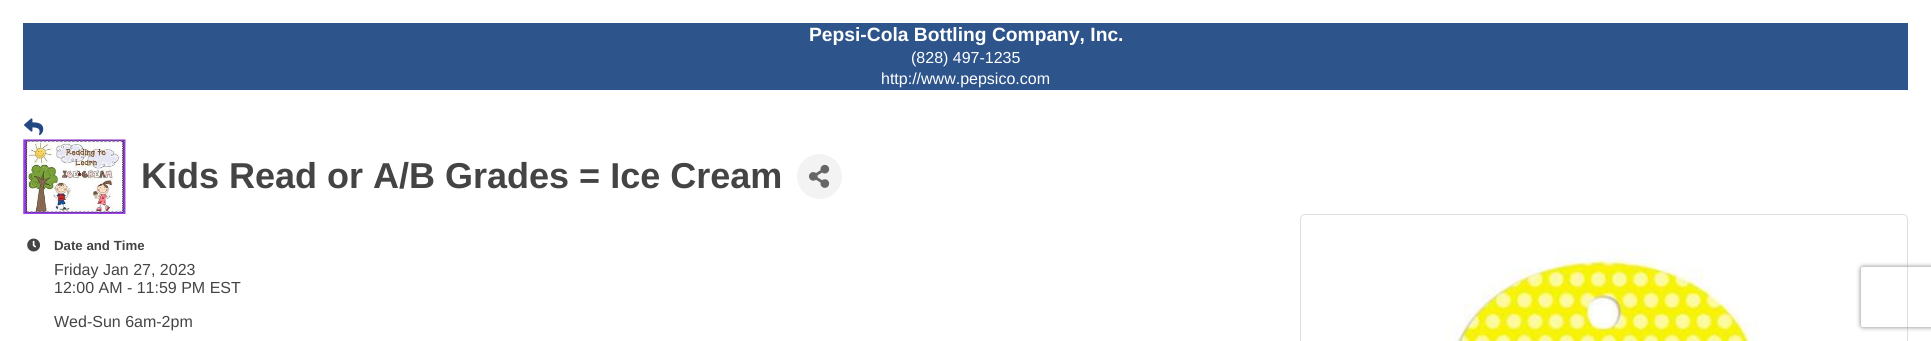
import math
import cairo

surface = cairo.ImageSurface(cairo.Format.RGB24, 1931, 341)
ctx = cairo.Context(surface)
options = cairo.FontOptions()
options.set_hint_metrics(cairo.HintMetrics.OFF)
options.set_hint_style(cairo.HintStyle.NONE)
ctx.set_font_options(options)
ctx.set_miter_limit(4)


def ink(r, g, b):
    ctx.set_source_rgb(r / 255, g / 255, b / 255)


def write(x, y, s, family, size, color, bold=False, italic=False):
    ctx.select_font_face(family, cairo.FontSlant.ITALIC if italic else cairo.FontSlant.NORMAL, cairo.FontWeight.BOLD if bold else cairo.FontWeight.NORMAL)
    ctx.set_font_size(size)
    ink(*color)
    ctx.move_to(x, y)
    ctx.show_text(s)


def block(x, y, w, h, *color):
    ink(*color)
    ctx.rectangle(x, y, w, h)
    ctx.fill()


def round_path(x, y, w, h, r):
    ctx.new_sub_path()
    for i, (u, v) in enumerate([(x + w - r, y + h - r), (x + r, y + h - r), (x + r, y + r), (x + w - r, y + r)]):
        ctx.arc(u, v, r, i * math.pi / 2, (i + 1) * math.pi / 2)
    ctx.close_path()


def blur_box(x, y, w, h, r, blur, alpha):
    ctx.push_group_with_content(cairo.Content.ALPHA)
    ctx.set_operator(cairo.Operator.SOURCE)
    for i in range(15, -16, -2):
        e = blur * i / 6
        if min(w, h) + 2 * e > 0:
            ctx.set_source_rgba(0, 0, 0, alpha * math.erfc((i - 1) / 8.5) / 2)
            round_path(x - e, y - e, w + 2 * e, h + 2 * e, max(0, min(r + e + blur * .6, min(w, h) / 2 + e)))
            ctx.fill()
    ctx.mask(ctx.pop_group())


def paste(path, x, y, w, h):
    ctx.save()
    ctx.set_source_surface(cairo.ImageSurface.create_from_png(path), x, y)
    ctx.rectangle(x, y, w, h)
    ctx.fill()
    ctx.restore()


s1 = dict(family="Liberation Sans", size=19.25, color=(255, 255, 255), bold=True)
s2 = dict(family="Liberation Sans", size=16, color=(255, 255, 255))
s3 = dict(family="Liberation Sans", size=36, color=(68, 68, 68), bold=True)
s4 = dict(family="Liberation Sans", size=13.25, color=(68, 68, 68), bold=True)
s5 = dict(family="Liberation Sans", size=16, color=(68, 68, 68))

ink(255, 255, 255)
ctx.paint()
block(23, 23, 1885, 67, 45, 84, 139)
write(809, 41, "Pepsi-Cola Bottling Company, Inc.", **s1)
write(911, 63, "(828) 497-1235", **s2)
write(881, 84, "http://www.pepsico.com", **s2)
paste("pic1.png", 24, 118, 20, 18)
paste("pic2.png", 23, 139, 103, 75)
write(141, 188, "Kids Read or A/B Grades = Ice Cream", **s3)
ink(243, 243, 243)
ctx.new_path()
ctx.arc(819.5, 176.5, 22.5, 0, 2 * math.pi)
ctx.fill()
paste("pic3.png", 809, 164, 21, 24)
paste("pic4.png", 27, 238, 14, 14)
write(54, 250, "Date and Time", **s4)
write(54, 275, "Friday Jan 27, 2023", **s5)
write(54, 293, "12:00 AM - 11:59 PM EST", **s5)
write(54, 327, "Wed-Sun 6am-2pm", **s5)
round_path(1300.5, 214.5, 607, 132, 4.5)
ink(223, 223, 223)
ctx.set_line_width(1)
ctx.stroke()
paste("pic5.png", 1447, 249, 311, 92)
ctx.save()
ctx.set_fill_rule(cairo.FillRule.EVEN_ODD)
ctx.new_path()
ctx.move_to(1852, 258)
ctx.line_to(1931, 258)
ctx.line_to(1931, 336)
ctx.line_to(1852, 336)
ctx.close_path()
ctx.move_to(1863, 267)
ctx.line_to(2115, 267)
ctx.curve_to(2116, 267, 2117, 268, 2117, 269)
ctx.line_to(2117, 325)
ctx.curve_to(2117, 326, 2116, 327, 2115, 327)
ctx.line_to(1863, 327)
ctx.curve_to(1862, 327, 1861, 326, 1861, 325)
ctx.line_to(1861, 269)
ctx.curve_to(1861, 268, 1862, 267, 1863, 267)
ctx.close_path()
ctx.clip()
ink(128, 128, 128)
blur_box(1861, 267, 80, 60, 2, 2.5, 1)
ctx.restore()
surface.write_to_png("screenshot.png")
